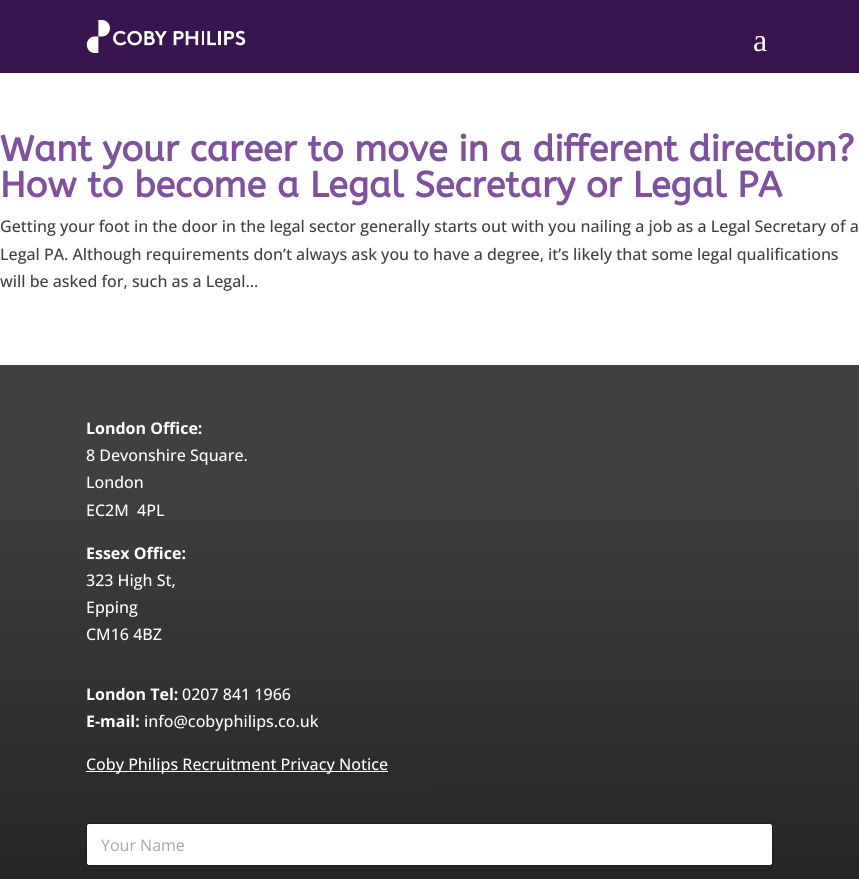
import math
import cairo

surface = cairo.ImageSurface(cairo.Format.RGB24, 859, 879)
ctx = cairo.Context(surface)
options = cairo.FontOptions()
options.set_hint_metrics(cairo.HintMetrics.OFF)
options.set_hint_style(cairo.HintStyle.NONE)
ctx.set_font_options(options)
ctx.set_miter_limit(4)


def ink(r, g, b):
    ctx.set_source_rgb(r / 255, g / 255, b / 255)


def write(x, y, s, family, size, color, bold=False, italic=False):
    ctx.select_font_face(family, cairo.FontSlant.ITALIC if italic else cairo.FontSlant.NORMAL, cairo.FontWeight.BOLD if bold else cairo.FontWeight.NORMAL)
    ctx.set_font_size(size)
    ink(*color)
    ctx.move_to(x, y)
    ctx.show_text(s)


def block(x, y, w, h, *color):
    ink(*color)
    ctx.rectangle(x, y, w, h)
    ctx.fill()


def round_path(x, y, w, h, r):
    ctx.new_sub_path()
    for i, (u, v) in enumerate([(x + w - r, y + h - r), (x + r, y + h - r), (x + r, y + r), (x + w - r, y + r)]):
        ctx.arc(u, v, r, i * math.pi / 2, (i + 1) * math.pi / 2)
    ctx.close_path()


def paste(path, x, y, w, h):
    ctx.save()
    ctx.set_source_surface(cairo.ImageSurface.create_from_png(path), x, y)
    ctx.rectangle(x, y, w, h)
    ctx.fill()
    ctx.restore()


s1 = dict(family="Liberation Serif", size=32, color=(255, 255, 255))
s2 = dict(family="ABeeZee", size=36, color=(126, 82, 157), bold=True)
s3 = dict(family="Open Sans Medium", size=16, color=(64, 64, 64))
s4 = dict(family="Open Sans", size=16, color=(255, 255, 255), bold=True)
s5 = dict(family="Open Sans Medium", size=16, color=(255, 255, 255))
s6 = dict(family="Open Sans", size=16, color=(166, 166, 166))

ink(255, 255, 255)
ctx.paint()
block(0, 0, 859, 73, 56, 21, 78)
paste("pic1.png", 86, 20, 160, 33)
write(753, 51, "a", **s1)
write(0, 161, "Want your career to move in a different direction?", **s2)
write(0, 197, "How to become a Legal Secretary or Legal PA", **s2)
write(0, 232, "Getting your foot in the door in the legal sector generally starts out with you nailing a job as a Legal Secretary of a", **s3)
write(0, 260, "Legal PA. Although requirements don’t always ask you to have a degree, it’s likely that some legal qualifications", **s3)
write(0, 287, "will be asked for, such as a Legal...", **s3)
gradient = cairo.LinearGradient(429, 365, 430, 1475)
gradient.add_color_stop_rgba(0.09, 0.251, 0.251, 0.251, 1)
gradient.add_color_stop_rgba(1, 0, 0, 0, 1)
ctx.set_source(gradient)
ctx.rectangle(0, 365, 859, 514)
ctx.fill()
write(86, 434, "London Office:", **s4)
write(86, 461, "8 Devonshire Square.", **s5)
write(86, 488, "London", **s5)
write(86, 516, "EC2M  4PL", **s5)
write(86, 559, "Essex Office:", **s4)
write(86, 586, "323 High St,", **s5)
write(86, 613, "Epping", **s5)
write(86, 640, "CM16 4BZ", **s5)
write(86, 700, "London Tel:", **s4)
write(182, 700, "0207 841 1966", **s5)
write(86, 727, "E-mail:", **s4)
write(144, 727, "info@cobyphilips.co.uk", **s5)
block(86, 771, 302, 1, 255, 255, 255)
write(86, 770, "Coby Philips Recruitment Privacy Notice", **s5)
round_path(87, 824, 685, 41, 2)
ctx.fill()
round_path(86.5, 823.5, 686, 42, 2.5)
ctx.set_source_rgba(0, 0, 0, 0.25)
ctx.set_line_width(1)
ctx.stroke()
write(101, 851, "Your Name", **s6)
surface.write_to_png("screenshot.png")
